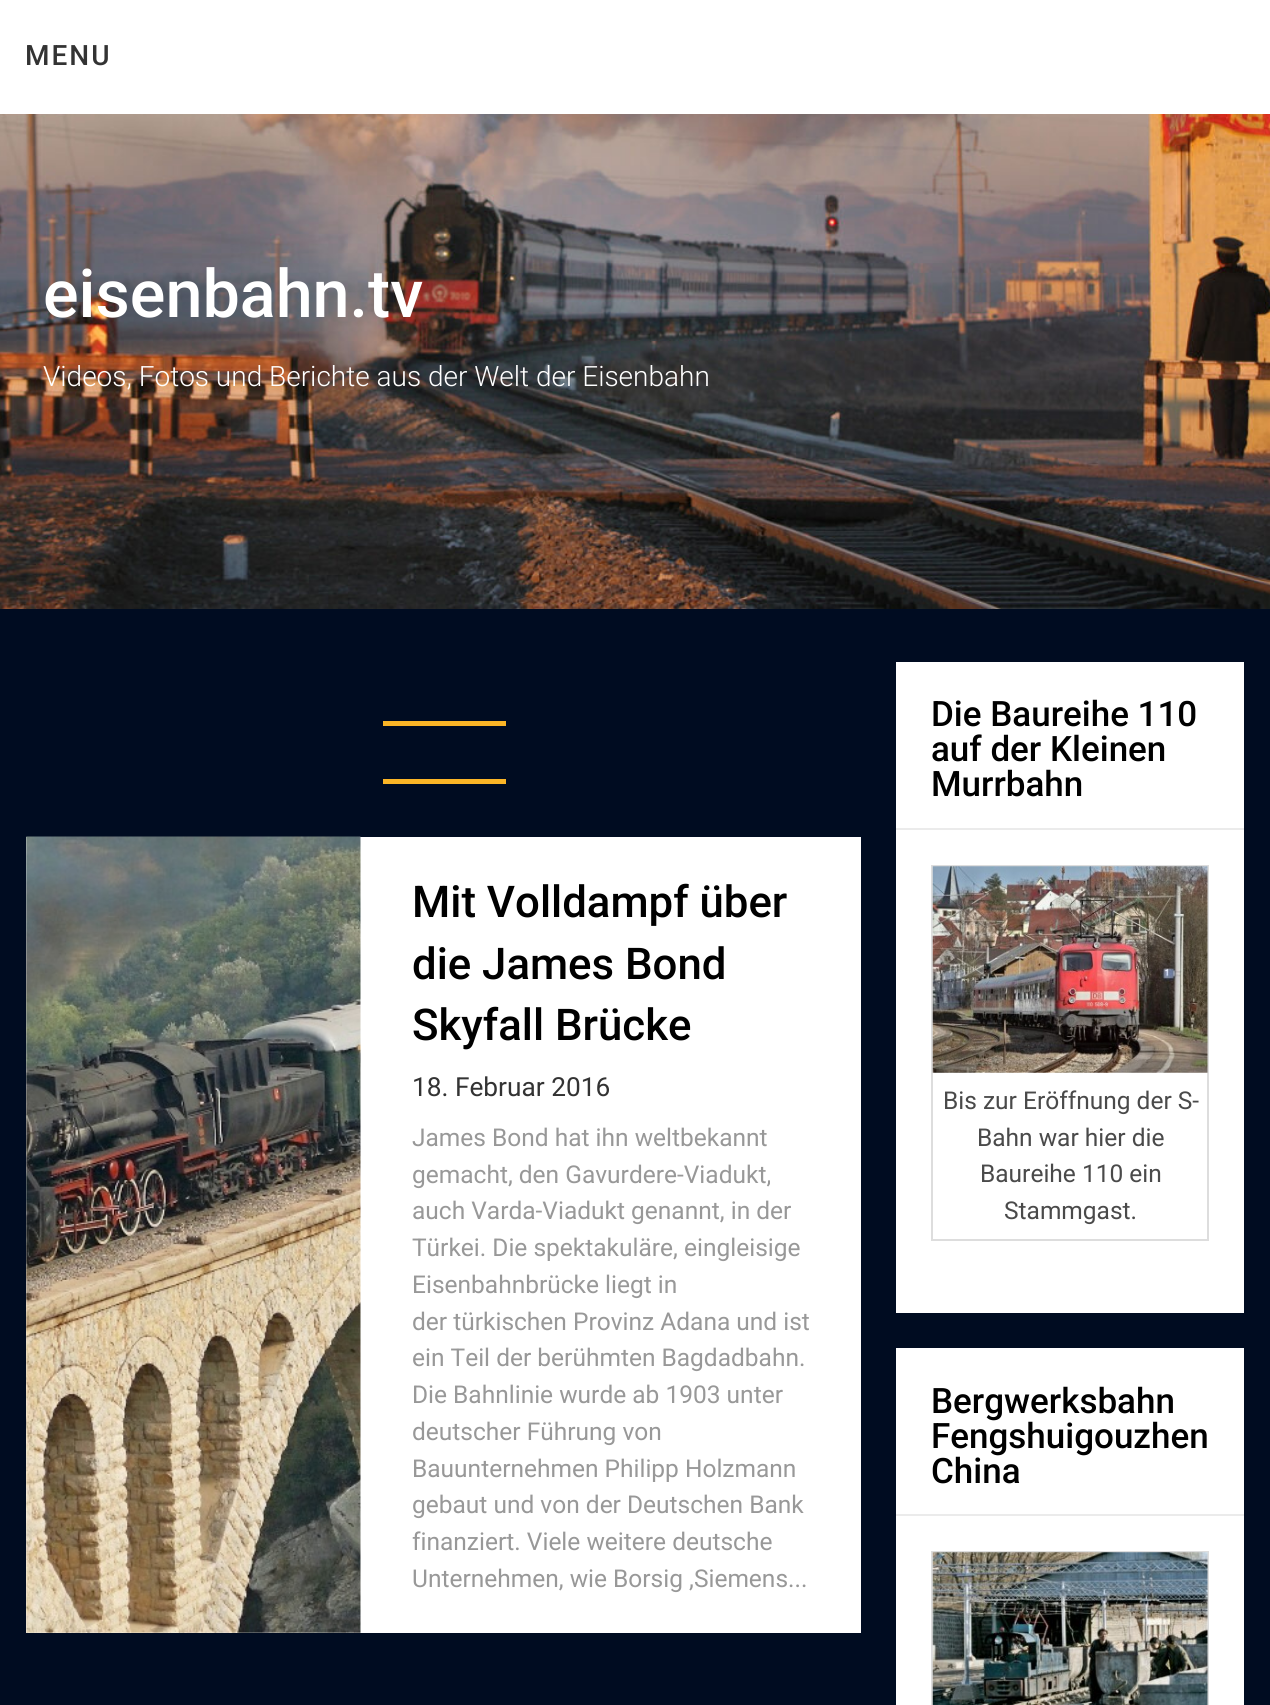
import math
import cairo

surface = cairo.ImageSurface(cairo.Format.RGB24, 1270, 1705)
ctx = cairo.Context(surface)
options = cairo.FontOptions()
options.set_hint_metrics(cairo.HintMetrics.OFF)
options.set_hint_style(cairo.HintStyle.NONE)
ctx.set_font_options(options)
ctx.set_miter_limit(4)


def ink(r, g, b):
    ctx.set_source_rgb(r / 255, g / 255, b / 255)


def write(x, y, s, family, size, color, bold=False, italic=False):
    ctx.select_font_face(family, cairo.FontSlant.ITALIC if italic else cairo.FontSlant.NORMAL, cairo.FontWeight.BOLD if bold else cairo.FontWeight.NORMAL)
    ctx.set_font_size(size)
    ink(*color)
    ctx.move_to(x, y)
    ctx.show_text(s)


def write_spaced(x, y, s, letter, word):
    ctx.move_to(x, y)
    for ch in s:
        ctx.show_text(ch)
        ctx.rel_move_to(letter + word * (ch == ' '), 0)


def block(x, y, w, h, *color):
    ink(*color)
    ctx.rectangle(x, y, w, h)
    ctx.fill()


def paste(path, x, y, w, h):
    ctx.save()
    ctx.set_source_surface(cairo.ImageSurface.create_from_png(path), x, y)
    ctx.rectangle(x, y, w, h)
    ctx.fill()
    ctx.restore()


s1 = dict(family="Roboto Medium", size=66.5, color=(255, 255, 255))
s2 = dict(family="Roboto Light", size=28, color=(255, 255, 255))
s3 = dict(family="Roboto Medium", size=43.75, color=(0, 0, 0))
s4 = dict(family="Roboto", size=26.25, color=(51, 51, 51))
s5 = dict(family="Roboto", size=24.5, color=(152, 152, 152))
s6 = dict(family="Roboto Medium", size=35, color=(0, 0, 0))
s7 = dict(family="Roboto", size=24.5, color=(74, 74, 74))

ink(0, 12, 33)
ctx.paint()
paste("pic1.png", 0, 114, 1270, 495)
block(0, 0, 1270, 114, 255, 255, 255)
ctx.select_font_face("Roboto Medium")
ctx.set_font_size(28)
ink(51, 51, 51)
write_spaced(25, 65, "MENU", 2, 0)
write(43, 317, "eisenbahn.tv", **s1)
write(43, 386, "Videos, Fotos und Berichte aus der Welt der Eisenbahn", **s2)
block(383, 721, 123, 5, 250, 181, 38)
block(383, 779, 123, 5, 250, 181, 38)
block(26, 837, 835, 796, 255, 255, 255)
paste("pic2.png", 26, 836, 335, 797)
write(412, 917, "Mit Volldampf über", **s3)
write(412, 979, "die James Bond", **s3)
write(412, 1040, "Skyfall Brücke", **s3)
write(412, 1096, "18. Februar 2016", **s4)
write(412, 1146, "James Bond hat ihn weltbekannt", **s5)
write(412, 1183, "gemacht, den Gavurdere-Viadukt,", **s5)
write(412, 1219, "auch Varda-Viadukt genannt, in der", **s5)
write(412, 1256, "Türkei. Die spektakuläre, eingleisige", **s5)
write(412, 1293, "Eisenbahnbrücke liegt in", **s5)
write(412, 1330, "der türkischen Provinz Adana und ist", **s5)
write(412, 1366, "ein Teil der berühmten Bagdadbahn.", **s5)
write(412, 1403, "Die Bahnlinie wurde ab 1903 unter", **s5)
write(412, 1440, "deutscher Führung von", **s5)
write(412, 1477, "Bauunternehmen Philipp Holzmann", **s5)
write(412, 1513, "gebaut und von der Deutschen Bank", **s5)
write(412, 1550, "finanziert. Viele weitere deutsche", **s5)
write(412, 1587, "Unternehmen, wie Borsig ,Siemens...", **s5)
block(896, 662, 348, 651, 255, 255, 255)
block(896, 828, 348, 2, 235, 235, 235)
write(931, 726, "Die Baureihe 110", **s6)
write(931, 761, "auf der Kleinen", **s6)
write(931, 796, "Murrbahn", **s6)
ctx.rectangle(932, 866, 276, 374)
ink(221, 221, 221)
ctx.stroke()
paste("pic3.png", 932, 866, 276, 207)
write(943, 1109, "Bis zur Eröffnung der S-", **s7)
write(977, 1146, "Bahn war hier die", **s7)
write(980, 1182, "Baureihe 110 ein", **s7)
write(1004, 1219, "Stammgast.", **s7)
block(896, 1348, 348, 357, 255, 255, 255)
block(896, 1514, 348, 2, 235, 235, 235)
write(931, 1413, "Bergwerksbahn", **s6)
write(931, 1448, "Fengshuigouzhen", **s6)
write(931, 1483, "China", **s6)
ctx.rectangle(932, 1552, 276, 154)
ink(221, 221, 221)
ctx.stroke()
paste("pic4.png", 932, 1552, 276, 153)
surface.write_to_png("screenshot.png")
